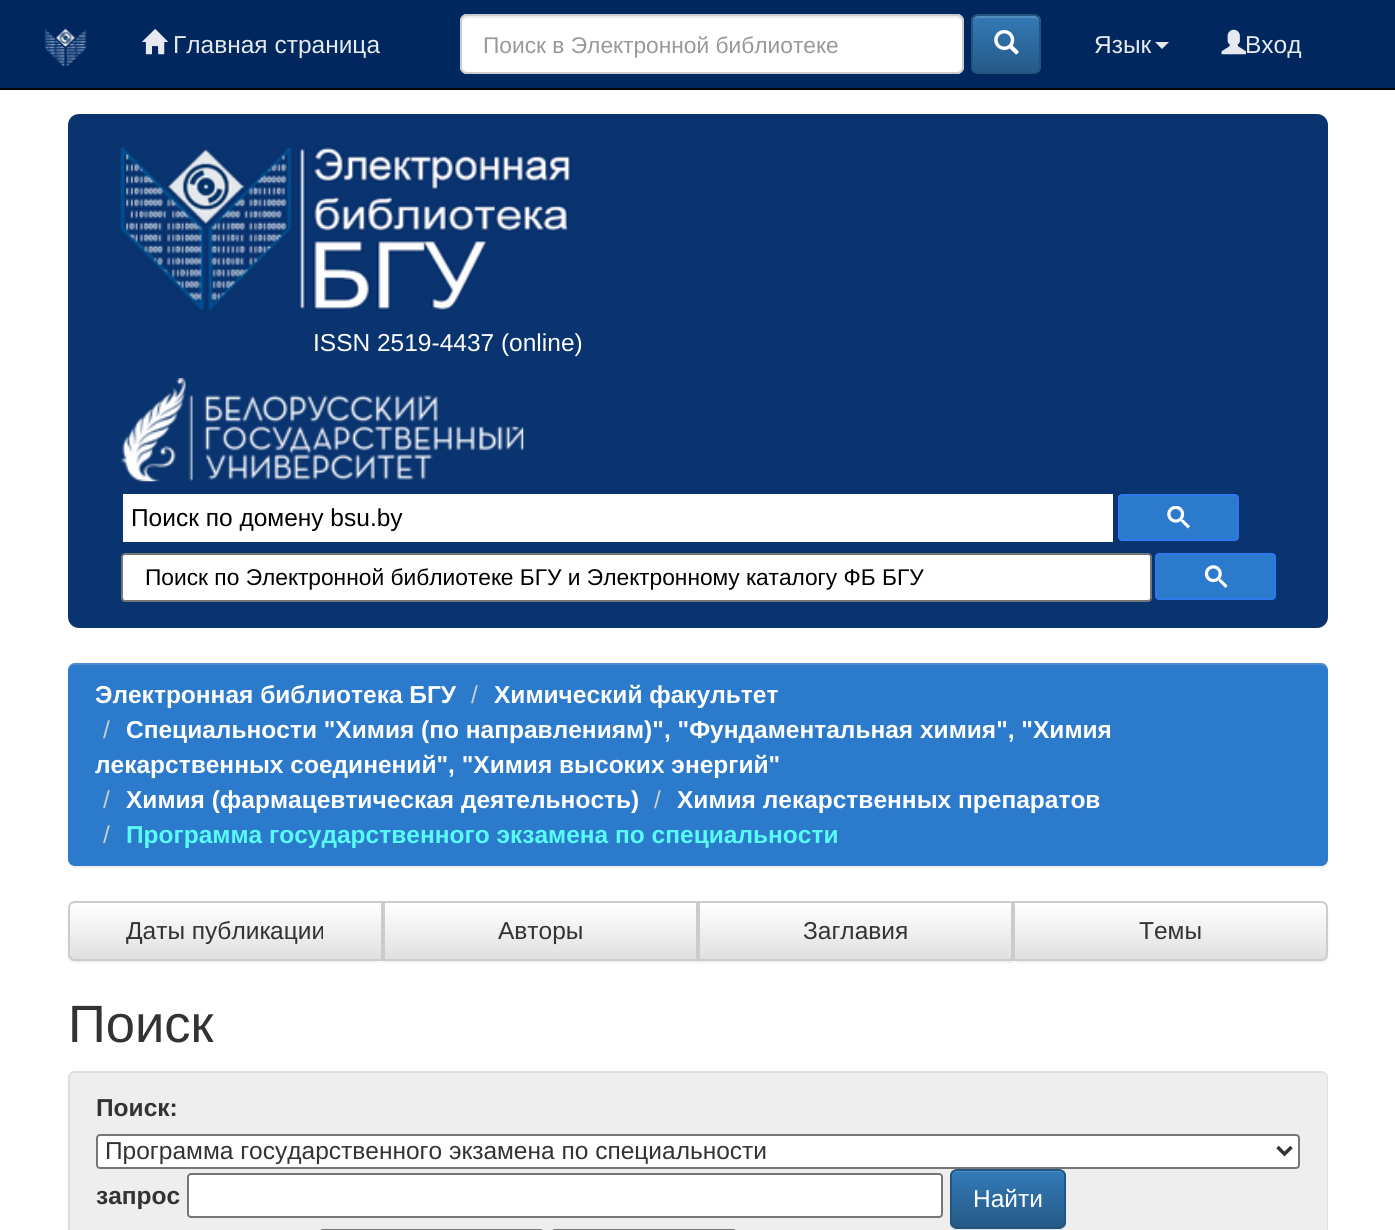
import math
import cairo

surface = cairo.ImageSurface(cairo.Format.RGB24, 1395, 1230)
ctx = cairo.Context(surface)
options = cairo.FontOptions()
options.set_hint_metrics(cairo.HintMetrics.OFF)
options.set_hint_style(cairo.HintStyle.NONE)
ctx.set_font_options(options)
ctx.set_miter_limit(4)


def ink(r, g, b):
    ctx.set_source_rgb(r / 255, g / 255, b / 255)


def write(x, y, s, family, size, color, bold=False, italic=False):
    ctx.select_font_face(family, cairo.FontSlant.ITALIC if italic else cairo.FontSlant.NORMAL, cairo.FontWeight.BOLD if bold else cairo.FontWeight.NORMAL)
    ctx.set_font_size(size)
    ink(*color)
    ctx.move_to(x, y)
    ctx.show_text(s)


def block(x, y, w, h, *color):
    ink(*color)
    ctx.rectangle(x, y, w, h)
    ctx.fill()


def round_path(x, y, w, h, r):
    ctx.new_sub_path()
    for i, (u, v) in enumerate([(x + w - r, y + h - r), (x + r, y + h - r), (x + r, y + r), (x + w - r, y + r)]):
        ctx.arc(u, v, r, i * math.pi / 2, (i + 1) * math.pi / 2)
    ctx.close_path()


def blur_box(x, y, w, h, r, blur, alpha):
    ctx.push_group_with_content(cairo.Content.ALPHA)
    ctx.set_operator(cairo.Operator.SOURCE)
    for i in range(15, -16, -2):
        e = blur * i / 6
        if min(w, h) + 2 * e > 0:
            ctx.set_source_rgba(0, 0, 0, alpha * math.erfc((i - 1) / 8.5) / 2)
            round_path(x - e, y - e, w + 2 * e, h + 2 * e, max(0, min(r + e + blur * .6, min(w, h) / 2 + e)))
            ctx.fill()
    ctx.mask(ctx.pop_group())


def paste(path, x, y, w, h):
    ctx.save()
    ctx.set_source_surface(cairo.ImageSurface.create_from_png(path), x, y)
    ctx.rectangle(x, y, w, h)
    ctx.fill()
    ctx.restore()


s1 = dict(family="Liberation Sans", size=24.5, color=(230, 233, 237))
s2 = dict(family="Liberation Sans", size=22.75, color=(153, 153, 153))
s3 = dict(family="Liberation Sans", size=24.5, color=(255, 255, 255))
s4 = dict(family="Liberation Sans", size=24.5, color=(0, 0, 0))
s5 = dict(family="Liberation Sans", size=22.75, color=(0, 0, 0))
s6 = dict(family="Liberation Sans", size=24.5, color=(255, 255, 255), bold=True)
s7 = dict(family="Liberation Sans", size=24.5, color=(204, 204, 204))
s8 = dict(family="Liberation Sans", size=24.5, color=(88, 250, 244), bold=True)
s9 = dict(family="Liberation Sans", size=24.5, color=(51, 51, 51))
s10 = dict(family="Liberation Sans", size=52.5, color=(51, 51, 51))
s11 = dict(family="Liberation Sans", size=24.5, color=(51, 51, 51), bold=True)

ink(255, 255, 255)
ctx.paint()
block(0, 0, 1395, 88, 0, 40, 95)
block(0, 88, 1395, 2, 8, 8, 8)
paste("pic1.png", 43, 28, 44, 40)
paste("pic2.png", 142, 29, 26, 26)
write(173, 53, "Главная страница", **s1)
ink(255, 255, 255)
round_path(460, 14, 504, 60, 7)
ctx.fill()
ink(236, 236, 236)
ctx.new_path()
ctx.move_to(467, 18)
ctx.line_to(957, 18)
ctx.curve_to(960, 18, 962, 20, 962, 23)
ctx.line_to(962, 68)
ctx.line_to(962, 71)
ctx.curve_to(962, 70, 963, 68, 963, 67)
ctx.line_to(963, 21)
ctx.curve_to(963, 18, 961, 16, 958, 16)
ctx.line_to(467, 16)
ctx.curve_to(464, 16, 462, 18, 462, 21)
ctx.line_to(462, 23)
ctx.curve_to(462, 20, 464, 18, 467, 18)
ctx.close_path()
ctx.fill()
round_path(461, 15, 502, 58, 6)
ink(204, 204, 204)
ctx.stroke()
write(483, 53, "Поиск в Электронной библиотеке", **s2)
ctx.save()
round_path(971, 14, 70, 60, 7)
ctx.clip()
gradient = cairo.LinearGradient(1006, 16, 1006, 72)
gradient.add_color_stop_rgba(0, 0.2, 0.478, 0.718, 1)
gradient.add_color_stop_rgba(1, 0.149, 0.353, 0.533, 1)
ctx.set_source(gradient)
ctx.rectangle(971, 16, 70, 56)
ctx.fill()
ctx.restore()
ctx.set_source_rgba(1, 1, 1, 0.15)
ctx.new_path()
ctx.move_to(978, 18)
ctx.line_to(1034, 18)
ctx.curve_to(1037, 18, 1040, 20, 1040, 23)
ctx.curve_to(1040, 14, 1033, 16, 1026, 16)
ctx.line_to(988, 16)
ctx.curve_to(980, 16, 973, 14, 973, 23)
ctx.curve_to(973, 20, 975, 18, 978, 18)
ctx.close_path()
ctx.fill()
round_path(972, 15, 68, 58, 6)
ink(36, 85, 128)
ctx.stroke()
paste("pic3.png", 994, 29, 25, 26)
write(1094, 53, "Язык", **s1)
ctx.new_path()
ctx.move_to(1155, 42)
ctx.line_to(1169, 42)
ctx.line_to(1162, 49)
ctx.close_path()
ctx.fill()
paste("pic4.png", 1221, 29, 25, 26)
write(1245, 53, "Вход", **s1)
ink(10, 52, 112)
round_path(68, 114, 1260, 514, 11)
ctx.fill()
paste("pic5.png", 120, 146, 452, 165)
write(313, 351, "ISSN 2519-4437 (online)", **s3)
paste("pic6.png", 120, 378, 404, 104)
block(123, 494, 990, 48, 255, 255, 255)
write(131, 526, "Поиск по домену bsu.by", **s4)
ink(43, 122, 204)
round_path(1119, 495, 119, 45, 3)
ctx.fill_preserve()
ink(48, 121, 237)
ctx.stroke()
paste("pic7.png", 1167, 506, 23, 23)
ink(255, 255, 255)
round_path(122, 554, 1029, 47, 3)
ctx.fill_preserve()
ink(118, 118, 118)
ctx.stroke()
write(145, 585, "Поиск по Электронной библиотеке БГУ и Электронному каталогу ФБ БГУ", **s5)
ink(43, 122, 204)
round_path(1156, 554, 119, 45, 3)
ctx.fill_preserve()
ink(48, 121, 237)
ctx.stroke()
paste("pic8.png", 1204, 565, 24, 23)
ink(0, 0, 0)
blur_box(68, 665, 1260, 203, 7, 1, 0.07)
ink(43, 122, 204)
round_path(68, 663, 1260, 203, 7)
ctx.fill()
ctx.set_source_rgba(1, 1, 1, 0.15)
ctx.new_path()
ctx.move_to(75, 665)
ctx.line_to(1321, 665)
ctx.curve_to(1325, 665, 1328, 668, 1328, 672)
ctx.line_to(1328, 670)
ctx.curve_to(1328, 666, 1325, 663, 1321, 663)
ctx.line_to(75, 663)
ctx.curve_to(71, 663, 68, 666, 68, 670)
ctx.line_to(68, 672)
ctx.curve_to(68, 668, 71, 665, 75, 665)
ctx.close_path()
ctx.fill()
write(95, 703, "Электронная библиотека БГУ", **s6)
write(471, 703, "/", **s7)
write(494, 703, "Химический факультет", **s6)
write(103, 738, "/", **s7)
write(126, 738, "Специальности \"Химия (по направлениям)\", \"Фундаментальная химия\", \"Химия", **s6)
write(95, 773, "лекарственных соединений\", \"Химия высоких энергий\"", **s6)
write(103, 808, "/", **s7)
write(126, 808, "Химия (фармацевтическая деятельность)", **s6)
write(654, 808, "/", **s7)
write(677, 808, "Химия лекарственных препаратов", **s6)
write(103, 843, "/", **s7)
write(126, 843, "Программа государственного экзамена по специальности", **s8)
ink(0, 0, 0)
blur_box(68, 903, 315, 60, 7, 1, 0.07)
ctx.save()
ctx.new_path()
ctx.move_to(75, 901)
ctx.line_to(383, 901)
ctx.line_to(383, 961)
ctx.line_to(75, 961)
ctx.curve_to(71, 961, 68, 958, 68, 954)
ctx.line_to(68, 908)
ctx.curve_to(68, 904, 71, 901, 75, 901)
ctx.close_path()
ctx.clip()
gradient = cairo.LinearGradient(226, 903, 226, 959)
gradient.add_color_stop_rgba(0, 1, 1, 1, 1)
gradient.add_color_stop_rgba(1, 0.878, 0.878, 0.878, 1)
ctx.set_source(gradient)
ctx.rectangle(68, 903, 313, 56)
ctx.fill()
ctx.restore()
ctx.new_path()
ctx.move_to(75, 902)
ctx.line_to(382, 902)
ctx.line_to(382, 960)
ctx.line_to(75, 960)
ctx.curve_to(71.5, 960, 69, 957.5, 69, 954)
ctx.line_to(69, 908)
ctx.curve_to(69, 904.5, 71.5, 902, 75, 902)
ctx.close_path()
ink(204, 204, 204)
ctx.stroke()
write(126, 939, "Даты публикации", **s9)
ink(0, 0, 0)
blur_box(383, 903, 315, 60, 0, 1, 0.07)
gradient = cairo.LinearGradient(541, 903, 541, 959)
gradient.add_color_stop_rgba(0, 1, 1, 1, 1)
gradient.add_color_stop_rgba(1, 0.878, 0.878, 0.878, 1)
ctx.set_source(gradient)
ctx.rectangle(385, 903, 311, 56)
ctx.fill()
ctx.rectangle(384, 902, 313, 58)
ink(204, 204, 204)
ctx.stroke()
write(498, 939, "Авторы", **s9)
ink(0, 0, 0)
blur_box(698, 903, 315, 60, 0, 1, 0.07)
gradient = cairo.LinearGradient(856, 903, 856, 959)
gradient.add_color_stop_rgba(0, 1, 1, 1, 1)
gradient.add_color_stop_rgba(1, 0.878, 0.878, 0.878, 1)
ctx.set_source(gradient)
ctx.rectangle(700, 903, 311, 56)
ctx.fill()
ctx.rectangle(699, 902, 313, 58)
ink(204, 204, 204)
ctx.stroke()
write(803, 939, "Заглавия", **s9)
ink(0, 0, 0)
blur_box(1013, 903, 315, 60, 7, 1, 0.07)
ctx.save()
ctx.new_path()
ctx.move_to(1013, 901)
ctx.line_to(1321, 901)
ctx.curve_to(1325, 901, 1328, 904, 1328, 908)
ctx.line_to(1328, 954)
ctx.curve_to(1328, 958, 1325, 961, 1321, 961)
ctx.line_to(1013, 961)
ctx.close_path()
ctx.clip()
gradient = cairo.LinearGradient(1171, 903, 1171, 959)
gradient.add_color_stop_rgba(0, 1, 1, 1, 1)
gradient.add_color_stop_rgba(1, 0.878, 0.878, 0.878, 1)
ctx.set_source(gradient)
ctx.rectangle(1015, 903, 313, 56)
ctx.fill()
ctx.restore()
ctx.set_source_rgba(1, 1, 1, 0.15)
ctx.new_path()
ctx.move_to(1015, 905)
ctx.line_to(1321, 905)
ctx.curve_to(1324, 905, 1326, 907, 1326, 910)
ctx.line_to(1326, 957)
ctx.curve_to(1327, 956, 1327, 955, 1327, 954)
ctx.line_to(1327, 908)
ctx.curve_to(1327, 905, 1325, 903, 1322, 903)
ctx.line_to(1015, 903)
ctx.close_path()
ctx.fill()
ctx.new_path()
ctx.move_to(1014, 902)
ctx.line_to(1321, 902)
ctx.curve_to(1324.5, 902, 1327, 904.5, 1327, 908)
ctx.line_to(1327, 954)
ctx.curve_to(1327, 957.5, 1324.5, 960, 1321, 960)
ctx.line_to(1014, 960)
ctx.close_path()
ink(204, 204, 204)
ctx.stroke()
write(1139, 939, "Темы", **s9)
write(68, 1042, "Поиск", **s10)
round_path(69, 1072, 1258, 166, 6)
ink(221, 221, 221)
ctx.stroke()
ink(238, 238, 238)
ctx.new_path()
ctx.move_to(75, 1073)
ctx.line_to(1322, 1073)
ctx.curve_to(1325, 1073, 1327, 1075, 1327, 1078)
ctx.line_to(1327, 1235)
ctx.line_to(70, 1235)
ctx.line_to(70, 1078)
ctx.curve_to(70, 1075, 72, 1073, 75, 1073)
ctx.close_path()
ctx.fill()
write(96, 1116, "Поиск:", **s11)
ink(255, 255, 255)
round_path(97, 1135, 1202, 33, 3)
ctx.fill_preserve()
ink(118, 118, 118)
ctx.stroke()
ctx.new_path()
ctx.move_to(1277.5, 1147)
ctx.line_to(1284.5, 1154)
ctx.line_to(1291.5, 1147)
ink(51, 51, 51)
ctx.set_line_width(3.5)
ctx.stroke()
write(105, 1159, "Программа государственного экзамена по специальности", **s9)
write(96, 1204, "запрос", **s11)
ink(255, 255, 255)
round_path(188, 1174, 754, 43, 3)
ctx.fill_preserve()
ink(118, 118, 118)
ctx.set_line_width(2)
ctx.stroke()
ink(0, 0, 0)
blur_box(950, 1171, 116, 59, 7, 1, 0.07)
ctx.save()
round_path(950, 1169, 116, 60, 7)
ctx.clip()
gradient = cairo.LinearGradient(1008, 1171, 1008, 1227)
gradient.add_color_stop_rgba(0, 0.2, 0.478, 0.718, 1)
gradient.add_color_stop_rgba(1, 0.149, 0.353, 0.533, 1)
ctx.set_source(gradient)
ctx.rectangle(950, 1171, 116, 56)
ctx.fill()
ctx.restore()
ctx.set_source_rgba(1, 1, 1, 0.15)
ctx.new_path()
ctx.move_to(957, 1172)
ctx.line_to(1059, 1172)
ctx.curve_to(1062, 1172, 1064, 1175, 1064, 1178)
ctx.line_to(1064, 1176)
ctx.curve_to(1064, 1173, 1062, 1171, 1059, 1171)
ctx.line_to(957, 1171)
ctx.curve_to(954, 1171, 952, 1173, 952, 1176)
ctx.line_to(952, 1178)
ctx.curve_to(952, 1175, 954, 1172, 957, 1172)
ctx.close_path()
ctx.fill()
round_path(951, 1170, 114, 58, 6)
ink(36, 85, 128)
ctx.stroke()
write(973, 1207, "Найти", **s3)
round_path(320, 1230, 223, 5, 3)
ink(118, 118, 118)
ctx.stroke()
round_path(552, 1230, 184, 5, 3)
ctx.stroke()
surface.write_to_png("screenshot.png")
